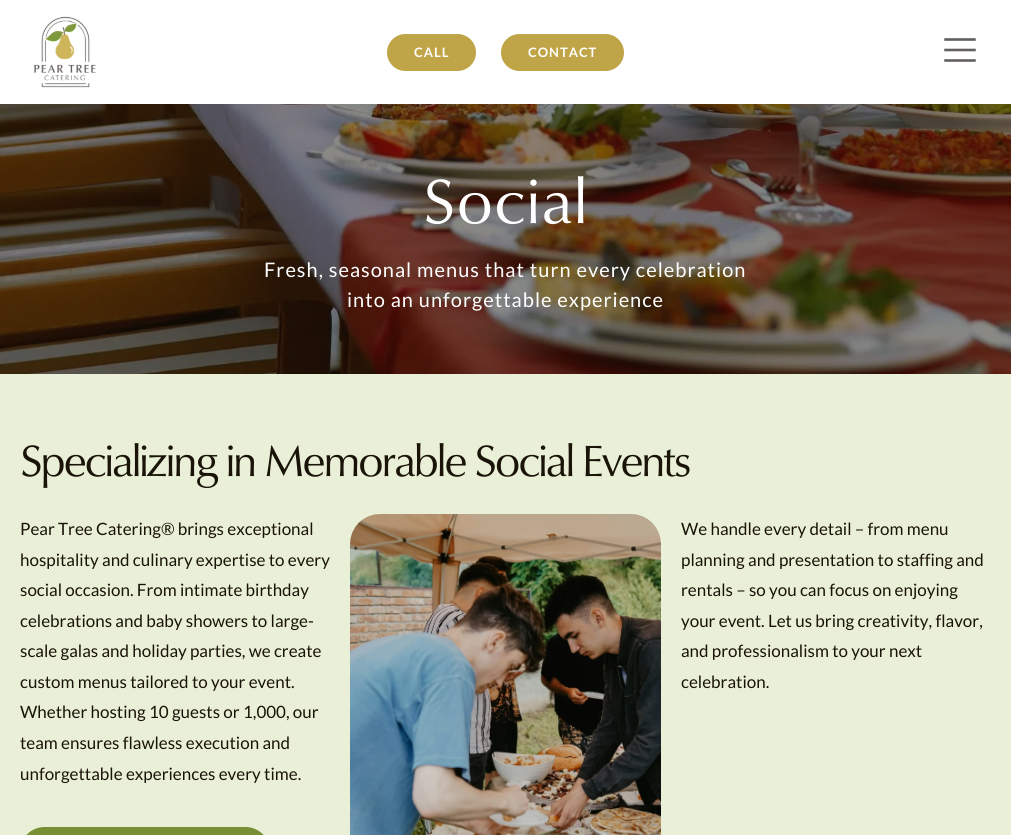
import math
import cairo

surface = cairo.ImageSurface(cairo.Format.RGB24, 1011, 835)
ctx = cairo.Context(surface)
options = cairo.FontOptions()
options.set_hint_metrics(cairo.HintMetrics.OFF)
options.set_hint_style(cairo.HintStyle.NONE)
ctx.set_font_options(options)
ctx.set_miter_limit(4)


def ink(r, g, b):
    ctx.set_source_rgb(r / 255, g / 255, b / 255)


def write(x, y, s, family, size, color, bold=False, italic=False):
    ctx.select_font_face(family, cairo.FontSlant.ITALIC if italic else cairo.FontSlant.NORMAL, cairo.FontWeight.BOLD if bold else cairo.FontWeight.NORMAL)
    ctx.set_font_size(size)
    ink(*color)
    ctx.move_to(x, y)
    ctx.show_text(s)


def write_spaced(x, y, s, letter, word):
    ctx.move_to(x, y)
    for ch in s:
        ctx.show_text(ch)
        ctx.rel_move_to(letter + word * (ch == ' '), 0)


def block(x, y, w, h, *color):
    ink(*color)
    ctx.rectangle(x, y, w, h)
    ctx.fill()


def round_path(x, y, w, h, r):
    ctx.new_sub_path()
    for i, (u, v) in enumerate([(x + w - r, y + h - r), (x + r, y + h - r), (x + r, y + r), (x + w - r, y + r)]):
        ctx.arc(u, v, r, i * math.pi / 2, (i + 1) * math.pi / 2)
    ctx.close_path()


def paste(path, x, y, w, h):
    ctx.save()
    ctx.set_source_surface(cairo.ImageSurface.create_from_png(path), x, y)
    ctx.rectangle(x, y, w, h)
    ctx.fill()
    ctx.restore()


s1 = dict(family="Lato", size=17, color=(25, 19, 8))

ink(234, 240, 215)
ctx.paint()
block(0, 0, 1011, 104, 255, 255, 255)
paste("pic1.png", 33, 16, 63, 72)
ink(192, 165, 72)
round_path(388, 35, 87, 35, 17.5)
ctx.fill_preserve()
ctx.stroke()
ctx.select_font_face("Lato", cairo.FontSlant.NORMAL, cairo.FontWeight.BOLD)
ctx.set_font_size(13)
ink(255, 255, 255)
write_spaced(414, 57, "CALL", 1, 0)
ink(192, 165, 72)
round_path(502, 35, 121, 35, 17.5)
ctx.fill_preserve()
ctx.stroke()
ink(255, 255, 255)
write_spaced(528, 57, "CONTACT", 1, 0)
paste("pic2.png", 944, 38, 32, 24)
paste("pic3.png", 0, 104, 1011, 270)
ctx.select_font_face("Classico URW")
ctx.set_font_size(64)
write_spaced(423, 223, "Social", 1, 0)
ctx.select_font_face("Lato")
ctx.set_font_size(20)
write_spaced(264, 277, "Fresh, seasonal menus that turn every celebration", 1, 0)
write_spaced(347, 307, "into an unforgettable experience", 1, 0)
ctx.select_font_face("Classico URW")
ctx.set_font_size(45)
ink(25, 19, 8)
write_spaced(20, 476, "Specializing in Memorable Social Events", -2.25, 0)
write(20, 535, "Pear Tree Catering® brings exceptional", **s1)
write(20, 566, "hospitality and culinary expertise to every", **s1)
write(20, 596, "social occasion. From intimate birthday", **s1)
write(20, 627, "celebrations and baby showers to large-", **s1)
write(20, 657, "scale galas and holiday parties, we create", **s1)
write(20, 688, "custom menus tailored to your event.", **s1)
write(20, 718, "Whether hosting 10 guests or 1,000, our", **s1)
write(20, 749, "team ensures flawless execution and", **s1)
write(20, 780, "unforgettable experiences every time.", **s1)
ink(121, 143, 54)
round_path(20, 827, 250, 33, 24.5)
ctx.fill()
paste("pic4.png", 350, 514, 311, 321)
write(681, 535, "We handle every detail – from menu", **s1)
write(681, 566, "planning and presentation to staffing and", **s1)
write(681, 596, "rentals – so you can focus on enjoying", **s1)
write(681, 627, "your event. Let us bring creativity, flavor,", **s1)
write(681, 657, "and professionalism to your next", **s1)
write(681, 688, "celebration.", **s1)
surface.write_to_png("screenshot.png")
